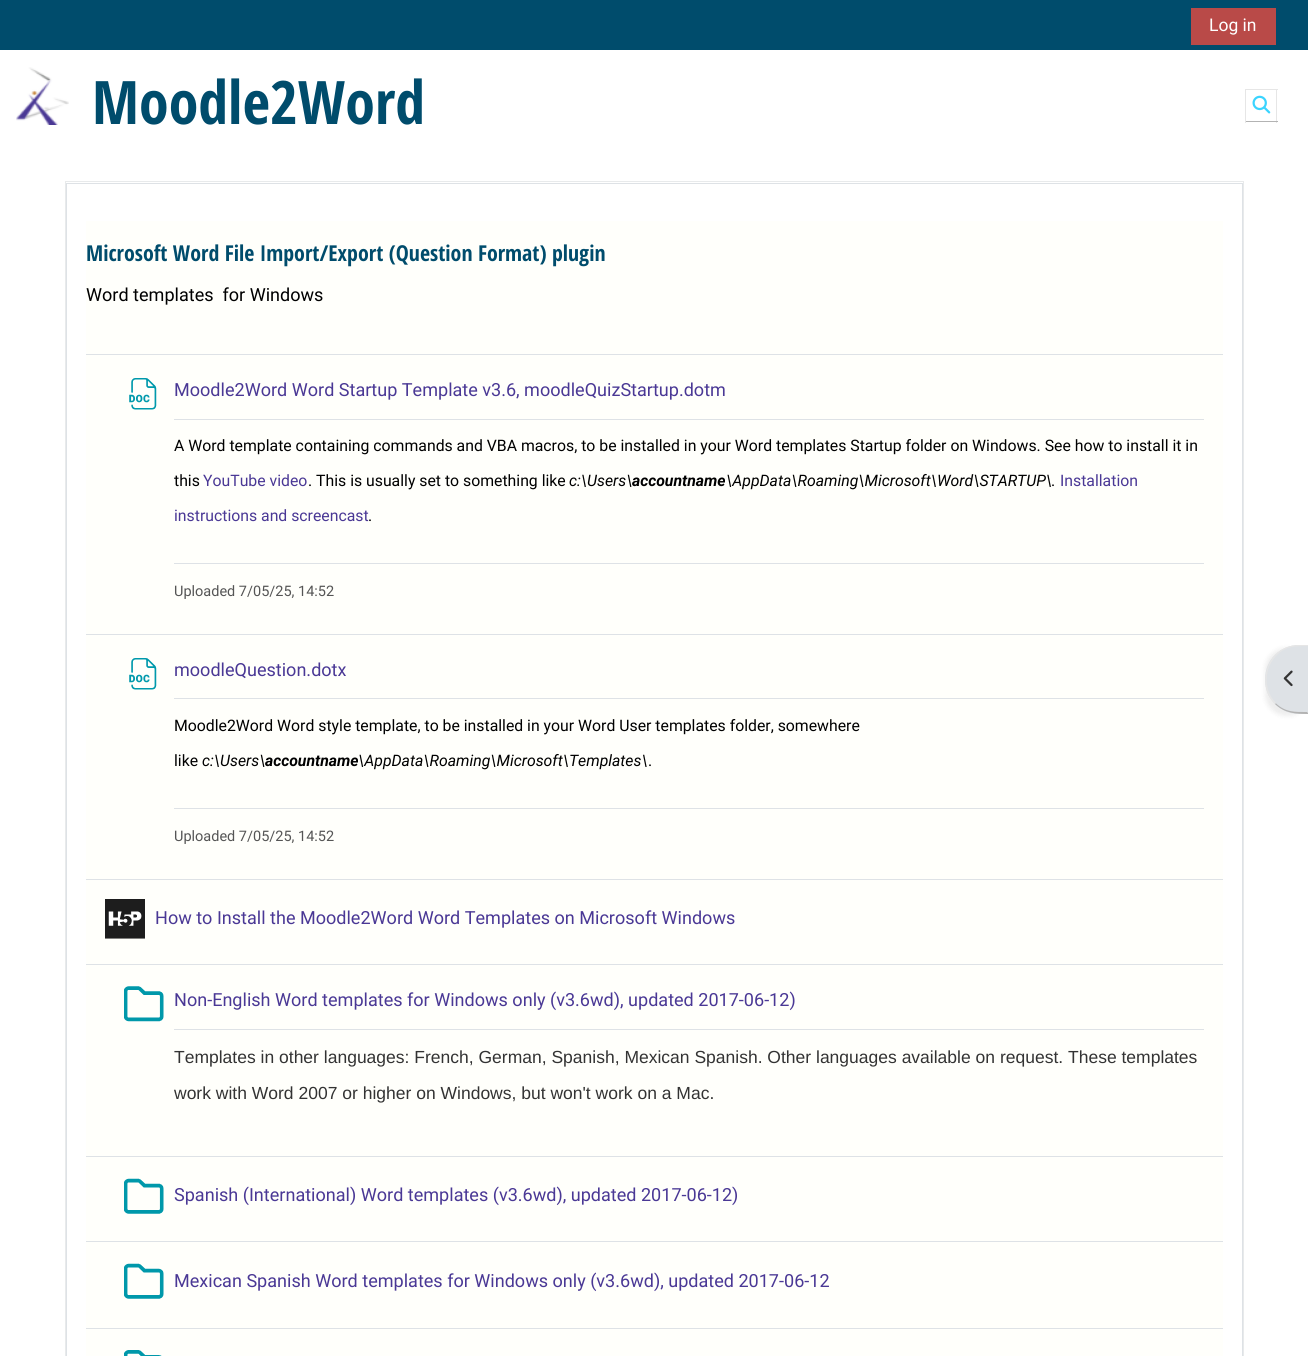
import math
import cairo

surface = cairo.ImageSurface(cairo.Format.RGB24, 1308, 1356)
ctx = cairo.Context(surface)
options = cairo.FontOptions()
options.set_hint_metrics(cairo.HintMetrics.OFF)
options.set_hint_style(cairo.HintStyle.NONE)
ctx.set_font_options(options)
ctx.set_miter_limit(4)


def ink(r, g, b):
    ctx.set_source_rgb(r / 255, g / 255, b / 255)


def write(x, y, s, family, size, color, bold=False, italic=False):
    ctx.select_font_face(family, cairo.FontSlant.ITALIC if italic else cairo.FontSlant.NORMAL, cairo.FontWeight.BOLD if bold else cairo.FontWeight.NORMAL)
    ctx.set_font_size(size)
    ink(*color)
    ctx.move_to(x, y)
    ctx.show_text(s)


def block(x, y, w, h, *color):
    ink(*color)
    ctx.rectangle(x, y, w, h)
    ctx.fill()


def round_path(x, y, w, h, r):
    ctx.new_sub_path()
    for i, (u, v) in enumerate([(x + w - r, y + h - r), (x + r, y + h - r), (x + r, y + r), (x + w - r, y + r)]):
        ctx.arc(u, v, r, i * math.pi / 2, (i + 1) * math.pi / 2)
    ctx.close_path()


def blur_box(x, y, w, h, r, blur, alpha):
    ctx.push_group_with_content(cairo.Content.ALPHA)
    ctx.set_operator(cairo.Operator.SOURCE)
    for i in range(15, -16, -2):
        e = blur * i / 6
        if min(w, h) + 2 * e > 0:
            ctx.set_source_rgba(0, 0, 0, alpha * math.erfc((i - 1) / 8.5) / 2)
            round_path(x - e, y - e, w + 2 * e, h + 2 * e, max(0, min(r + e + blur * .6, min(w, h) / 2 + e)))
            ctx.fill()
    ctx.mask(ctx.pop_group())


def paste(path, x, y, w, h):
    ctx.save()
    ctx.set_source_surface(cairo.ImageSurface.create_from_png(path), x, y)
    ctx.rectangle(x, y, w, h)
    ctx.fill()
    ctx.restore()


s1 = dict(family="Roboto", size=17.5, color=(255, 255, 255))
s2 = dict(family="Open Sans Condensed", size=60, color=(0, 76, 108), bold=True)
s3 = dict(family="Open Sans Condensed", size=21.9, color=(0, 76, 108), bold=True)
s4 = dict(family="Roboto", size=18.05, color=(0, 0, 0))
s5 = dict(family="Roboto", size=18.05, color=(74, 56, 149))
s6 = dict(family="Roboto", size=15.8, color=(0, 0, 0))
s7 = dict(family="Roboto", size=15.8, color=(74, 56, 149))
s8 = dict(family="Roboto", size=15.8, color=(0, 0, 0), italic=True)
s9 = dict(family="Roboto", size=15.8, color=(0, 0, 0), bold=True, italic=True)
s10 = dict(family="Roboto", size=14.5, color=(85, 85, 85))
s11 = dict(family="Liberation Sans", size=17.5, color=(51, 51, 51))

ink(255, 255, 255)
ctx.paint()
block(0, 0, 1308, 50, 0, 76, 108)
block(1191, 8, 85, 37, 185, 74, 72)
write(1209, 31, "Log in", **s1)
paste("pic1.png", 16, 67, 53, 58)
write(92, 124, "Moodle2Word", **s2)
block(1245, 89, 33, 1, 230, 230, 230)
block(1276, 89, 1, 34, 230, 230, 230)
block(1245, 121, 33, 1, 179, 179, 179)
block(1245, 89, 1, 34, 230, 230, 230)
paste("pic2.png", 1252, 95, 19, 19)
ctx.rectangle(65.5, 181.5, 1178, 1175)
ink(232, 234, 235)
ctx.set_line_width(1)
ctx.stroke()
ctx.rectangle(66.5, 183.5, 1176, 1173)
ink(222, 226, 230)
ctx.stroke()
block(86, 221, 1137, 1135, 255, 255, 251)
write(86, 261, "Microsoft Word File Import/Export (Question Format) plugin", **s3)
write(86, 301, "Word templates  for Windows", **s4)
block(86, 354, 1137, 1, 222, 226, 230)
paste("pic3.png", 129, 378, 28, 32)
write(174, 396, "Moodle2Word Word Startup Template v3.6, moodleQuizStartup.dotm", **s5)
block(174, 419, 1030, 1, 222, 226, 230)
write(174, 451, "A Word template containing commands and VBA macros, to be installed in your Word templates Startup folder on Windows. See how to install it in", **s6)
write(174, 486, "this", **s6)
write(203, 486, "YouTube video", **s7)
write(308, 486, ". This is usually set to something like", **s6)
write(569, 486, "c:\\Users\\", **s8)
write(632, 486, "accountname", **s9)
write(726, 486, "\\AppData\\Roaming\\Microsoft\\Word\\STARTUP\\", **s8)
write(1051, 486, ".", **s6)
write(1060, 486, "Installation", **s7)
write(174, 521, "instructions and screencast", **s7)
write(368, 521, ".", **s6)
block(174, 563, 1030, 1, 222, 226, 230)
write(174, 596, "Uploaded 7/05/25, 14:52", **s10)
block(86, 634, 1137, 1, 222, 226, 230)
paste("pic3.png", 129, 658, 28, 32)
write(174, 676, "moodleQuestion.dotx", **s5)
block(174, 698, 1030, 1, 222, 226, 230)
write(174, 731, "Moodle2Word Word style template, to be installed in your Word User templates folder, somewhere", **s6)
write(174, 766, "like", **s6)
write(202, 766, "c:\\Users\\", **s8)
write(265, 766, "accountname", **s9)
write(358, 766, "\\AppData\\Roaming\\Microsoft\\Templates\\", **s8)
write(648, 766, ".", **s6)
block(174, 808, 1030, 1, 222, 226, 230)
write(174, 841, "Uploaded 7/05/25, 14:52", **s10)
block(86, 879, 1137, 1, 222, 226, 230)
paste("pic4.png", 105, 899, 40, 40)
write(155, 924, "How to Install the Moodle2Word Word Templates on Microsoft Windows", **s5)
block(86, 964, 1137, 1, 222, 226, 230)
paste("pic5.png", 124, 986, 40, 36)
write(174, 1006, "Non-English Word templates for Windows only (v3.6wd), updated 2017-06-12)", **s5)
block(174, 1029, 1030, 1, 222, 226, 230)
write(174, 1063, "Templates in other languages: French, German, Spanish, Mexican Spanish. Other languages available on request. These templates", **s11)
write(174, 1099, "work with Word 2007 or higher on Windows, but won't work on a Mac.", **s11)
block(86, 1156, 1137, 1, 222, 226, 230)
paste("pic6.png", 124, 1178, 40, 36)
write(174, 1201, "Spanish (International) Word templates (v3.6wd), updated 2017-06-12)", **s5)
block(86, 1241, 1137, 1, 222, 226, 230)
paste("pic7.png", 124, 1263, 40, 36)
write(174, 1287, "Mexican Spanish Word templates for Windows only (v3.6wd), updated 2017-06-12", **s5)
block(86, 1328, 1137, 1, 222, 226, 230)
paste("pic8.png", 124, 1350, 38, 6)
ink(0, 0, 0)
blur_box(1265, 648, 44, 68, 34, 2.5, 0.07)
ink(222, 226, 230)
ctx.new_path()
ctx.move_to(1299, 645)
ctx.line_to(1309, 645)
ctx.line_to(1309, 714)
ctx.line_to(1299, 714)
ctx.curve_to(1280, 714, 1265, 699, 1265, 680)
ctx.line_to(1265, 679)
ctx.curve_to(1265, 660, 1280, 645, 1299, 645)
ctx.close_path()
ctx.fill()
ink(230, 230, 230)
ctx.new_path()
ctx.move_to(1299, 645)
ctx.curve_to(1289, 645, 1280.5, 649, 1275, 655)
ctx.line_to(1276, 656)
ctx.curve_to(1285, 646, 1295.5, 646, 1308, 646)
ctx.line_to(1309, 645)
ctx.close_path()
ctx.fill()
ctx.new_path()
ctx.move_to(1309, 645)
ctx.line_to(1308, 646)
ctx.line_to(1308, 712)
ctx.line_to(1307, 712)
ctx.line_to(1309, 714)
ctx.close_path()
ctx.fill()
ink(179, 179, 179)
ctx.new_path()
ctx.move_to(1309, 714)
ctx.curve_to(1295.5, 714, 1285, 713.5, 1275, 704)
ctx.line_to(1275.5, 703)
ctx.curve_to(1285.5, 712.5, 1294.5, 712, 1307, 712)
ctx.close_path()
ctx.fill()
ink(230, 230, 230)
ctx.new_path()
ctx.move_to(1275, 655)
ctx.curve_to(1263, 668, 1261, 691, 1275, 704)
ctx.line_to(1276, 703)
ctx.curve_to(1263, 690, 1264, 668, 1276, 656)
ctx.close_path()
ctx.fill()
paste("pic9.png", 1283, 670, 10, 17)
surface.write_to_png("screenshot.png")
